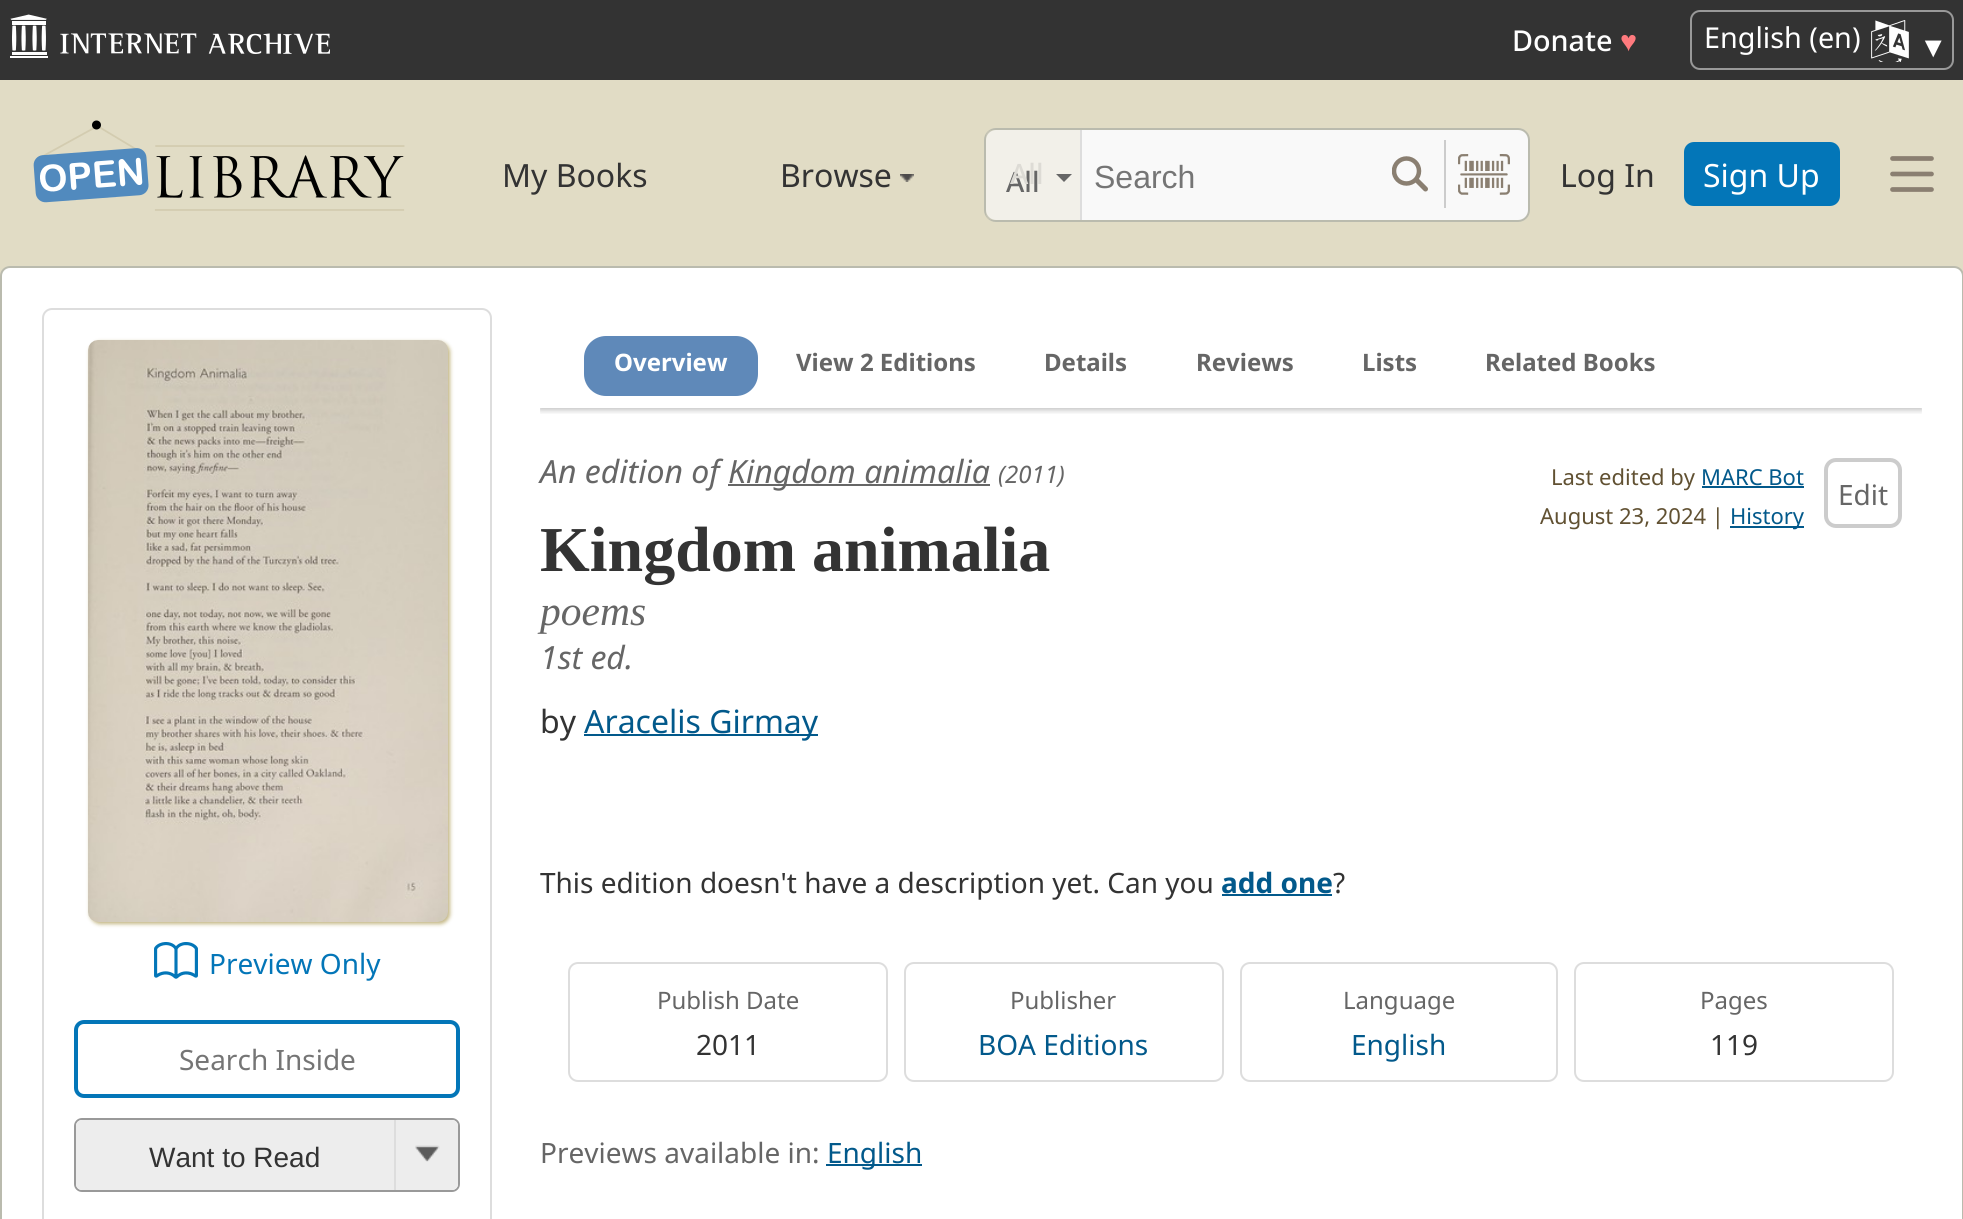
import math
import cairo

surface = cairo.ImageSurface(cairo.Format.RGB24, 1963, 1219)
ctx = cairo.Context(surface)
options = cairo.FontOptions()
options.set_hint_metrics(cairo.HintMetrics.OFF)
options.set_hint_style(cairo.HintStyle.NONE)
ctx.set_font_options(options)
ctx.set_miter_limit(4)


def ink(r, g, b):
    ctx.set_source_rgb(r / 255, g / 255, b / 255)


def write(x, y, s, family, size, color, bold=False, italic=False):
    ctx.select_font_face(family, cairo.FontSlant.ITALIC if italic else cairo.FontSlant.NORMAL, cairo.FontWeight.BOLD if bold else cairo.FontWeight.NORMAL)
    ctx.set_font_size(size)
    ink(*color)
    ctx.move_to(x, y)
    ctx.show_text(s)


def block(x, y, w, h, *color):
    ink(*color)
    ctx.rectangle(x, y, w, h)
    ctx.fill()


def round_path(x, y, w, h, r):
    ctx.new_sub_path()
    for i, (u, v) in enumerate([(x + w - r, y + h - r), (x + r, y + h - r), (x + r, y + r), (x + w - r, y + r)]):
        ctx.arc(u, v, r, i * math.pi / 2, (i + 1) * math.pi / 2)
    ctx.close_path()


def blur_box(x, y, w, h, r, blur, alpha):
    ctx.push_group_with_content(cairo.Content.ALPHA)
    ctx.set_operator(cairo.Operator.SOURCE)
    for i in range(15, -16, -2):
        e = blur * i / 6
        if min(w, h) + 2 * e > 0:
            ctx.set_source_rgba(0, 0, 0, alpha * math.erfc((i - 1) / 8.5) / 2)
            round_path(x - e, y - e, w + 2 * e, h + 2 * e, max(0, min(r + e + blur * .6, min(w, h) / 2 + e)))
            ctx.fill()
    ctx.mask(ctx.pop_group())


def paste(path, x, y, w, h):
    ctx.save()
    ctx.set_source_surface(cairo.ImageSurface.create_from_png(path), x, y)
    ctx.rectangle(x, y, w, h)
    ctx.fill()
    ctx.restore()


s1 = dict(family="Noto Sans Medium", size=28.75, color=(255, 255, 255))
s2 = dict(family="Liberation Sans", size=28.75, color=(255, 122, 126))
s3 = dict(family="Noto Sans", size=28.75, color=(255, 255, 255))
s4 = dict(family="Liberation Sans", size=28.75, color=(255, 255, 255))
s5 = dict(family="Noto Sans", size=32, color=(51, 51, 51))
s6 = dict(family="Noto Sans Medium", size=28, color=(102, 102, 102))
s7 = dict(family="Noto Sans Medium", size=28, color=(221, 219, 213))
s8 = dict(family="Liberation Sans", size=32, color=(117, 117, 117))
s9 = dict(family="Noto Sans", size=32, color=(255, 255, 255))
s10 = dict(family="Noto Sans", size=28, color=(3, 118, 184))
s11 = dict(family="Noto Sans", size=28, color=(117, 117, 117))
s12 = dict(family="Liberation Sans", size=28, color=(51, 51, 51))
s13 = dict(family="Noto Sans", size=24, color=(255, 255, 255), bold=True)
s14 = dict(family="Noto Sans", size=24, color=(102, 102, 102), bold=True)
s15 = dict(family="Noto Sans", size=32, color=(102, 102, 102), italic=True)
s16 = dict(family="Noto Sans", size=24, color=(102, 102, 102), italic=True)
s17 = dict(family="Liberation Serif", size=64, color=(51, 51, 51), bold=True)
s18 = dict(family="Liberation Serif", size=41.5, color=(102, 102, 102), italic=True)
s19 = dict(family="Noto Sans", size=32, color=(2, 89, 139))
s20 = dict(family="Noto Sans", size=22, color=(97, 81, 50))
s21 = dict(family="Noto Sans", size=22, color=(2, 89, 139))
s22 = dict(family="Noto Sans", size=28, color=(102, 102, 102))
s23 = dict(family="Noto Sans", size=28, color=(51, 51, 51))
s24 = dict(family="Noto Sans", size=28, color=(2, 89, 139), bold=True)
s25 = dict(family="Noto Sans", size=24, color=(102, 102, 102))
s26 = dict(family="Noto Sans", size=28, color=(2, 89, 139))

ink(225, 220, 197)
ctx.paint()
block(0, 0, 1963, 80, 51, 51, 51)
paste("pic1.png", 10, 14, 320, 44)
write(1512, 51, "Donate", **s1)
write(1620, 51, "♥", **s2)
round_path(1691, 11, 262, 58, 9)
ink(153, 153, 153)
ctx.stroke()
write(1704, 48, "English (en)", **s3)
paste("pic2.png", 1871, 20, 38, 42)
write(1919, 57, "▼", **s4)
paste("pic3.png", 33, 120, 372, 91)
write(502, 187, "My Books", **s5)
write(780, 187, "Browse", **s5)
paste("pic4.png", 900, 174, 14, 8)
ink(249, 249, 249)
round_path(985, 129, 544, 92, 11)
ctx.fill_preserve()
ink(186, 187, 174)
ctx.stroke()
ctx.set_source_rgba(0.886, 0.863, 0.773, 0.32)
ctx.new_path()
ctx.move_to(992, 130)
ctx.line_to(1082, 130)
ctx.line_to(1082, 220)
ctx.line_to(992, 220)
ctx.curve_to(988.5, 220, 986, 217.5, 986, 214)
ctx.line_to(986, 136)
ctx.curve_to(986, 132.5, 988.5, 130, 992, 130)
ctx.close_path()
ctx.fill()
block(1080, 130, 2, 90, 221, 221, 221)
write(1006, 192, "All", **s6)
write(1010, 184, "All", **s7)
ink(102, 102, 102)
ctx.new_path()
ctx.move_to(1056, 174)
ctx.line_to(1072, 174)
ctx.line_to(1064, 182)
ctx.close_path()
ctx.fill()
write(1094, 188, "Search", **s8)
ctx.save()
ctx.rectangle(1392, 156, 36, 36)
ctx.clip()
ctx.arc(1406.5, 171, 12.5, 0, 2 * math.pi)
ink(138, 127, 113)
ctx.set_line_width(4.5)
ctx.stroke()
ctx.restore()
ctx.new_path()
ctx.move_to(1416.5, 180)
ctx.line_to(1425.5, 189)
ink(138, 127, 113)
ctx.set_line_width(5)
ctx.set_line_cap(cairo.LineCap.ROUND)
ctx.set_line_join(cairo.LineJoin.ROUND)
ctx.stroke()
block(1444, 140, 2, 68, 204, 204, 204)
paste("pic5.png", 1458, 154, 52, 41)
write(1560, 187, "Log In", **s5)
ink(3, 118, 184)
round_path(1684, 142, 156, 64, 10)
ctx.fill()
write(1703, 187, "Sign Up", **s9)
ctx.new_path()
ctx.move_to(1892.5, 189.5)
ctx.line_to(1931.5, 189.5)
ctx.move_to(1892.5, 174)
ctx.line_to(1931.5, 174)
ctx.move_to(1892.5, 158.5)
ctx.line_to(1931.5, 158.5)
ink(138, 127, 113)
ctx.set_line_width(4.7)
ctx.set_line_join(cairo.LineJoin.MITER)
ctx.stroke()
ink(255, 255, 255)
round_path(1, 267, 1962, 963, 9)
ctx.fill_preserve()
ink(186, 187, 174)
ctx.set_line_width(2)
ctx.set_line_cap(cairo.LineCap.BUTT)
ctx.stroke()
round_path(43, 309, 448, 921, 9)
ink(221, 221, 221)
ctx.stroke()
ink(195, 182, 131)
blur_box(90, 342, 360, 582, 10, 2, 1)
paste("pic6.png", 88, 340, 360, 582)
paste("pic7.png", 154, 942, 44, 37)
write(209, 974, "Preview Only", **s10)
round_path(76, 1022, 382, 74, 8)
ctx.set_line_width(4)
ctx.stroke()
write(179, 1070, "Search Inside", **s11)
round_path(75, 1119, 384, 72, 7)
ink(153, 153, 153)
ctx.set_line_width(2)
ctx.stroke()
ink(237, 237, 237)
ctx.new_path()
ctx.move_to(82, 1120)
ctx.line_to(394, 1120)
ctx.line_to(394, 1190)
ctx.line_to(82, 1190)
ctx.curve_to(78.5, 1190, 76, 1187.5, 76, 1184)
ctx.line_to(76, 1126)
ctx.curve_to(76, 1122.5, 78.5, 1120, 82, 1120)
ctx.close_path()
ctx.fill()
write(149, 1167, "Want to Read", **s12)
ink(237, 237, 237)
ctx.new_path()
ctx.move_to(394, 1120)
ctx.line_to(452, 1120)
ctx.curve_to(455.5, 1120, 458, 1122.5, 458, 1126)
ctx.line_to(458, 1184)
ctx.curve_to(458, 1187.5, 455.5, 1190, 452, 1190)
ctx.line_to(394, 1190)
ctx.close_path()
ctx.fill()
block(394, 1120, 2, 70, 221, 221, 221)
paste("pic8.png", 415, 1145, 25, 17)
ctx.save()
ctx.rectangle(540, 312, 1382, 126)
ctx.clip()
ctx.rectangle(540, 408, 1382, 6)
ctx.clip()
ink(0, 0, 0)
blur_box(540, 314, 1382, 96, 0, 3, 0.25)
ctx.restore()
ink(95, 137, 185)
round_path(584, 336, 174, 60, 22)
ctx.fill()
write(614, 371, "Overview", **s13)
write(796, 371, "View 2 Editions", **s14)
write(1044, 371, "Details", **s14)
write(1196, 371, "Reviews", **s14)
write(1362, 371, "Lists", **s14)
write(1485, 371, "Related Books", **s14)
write(540, 483, "An edition of", **s15)
block(728, 484, 262, 2, 102, 102, 102)
write(728, 483, "Kingdom animalia", **s15)
write(998, 483, "(2011)", **s16)
write(540, 571, "Kingdom animalia", **s17)
write(540, 625, "poems", **s18)
write(540, 669, "1st ed.", **s15)
write(540, 733, "by", **s5)
block(584, 734, 234, 2, 2, 89, 139)
write(584, 733, "Aracelis Girmay", **s19)
write(1551, 485, "Last edited by", **s20)
write(1701, 485, "MARC Bot", **s21)
block(1702, 486, 102, 2, 2, 89, 139)
write(1540, 524, "August 23, 2024 |", **s20)
block(1730, 526, 74, 2, 2, 89, 139)
write(1730, 524, "History", **s21)
round_path(1826, 460, 74, 66, 10)
ink(204, 204, 204)
ctx.set_line_width(4)
ctx.stroke()
write(1838, 505, "Edit", **s22)
write(540, 893, "This edition doesn't have a description yet. Can you", **s23)
write(1221, 893, "add one", **s24)
block(1222, 894, 110, 2, 2, 89, 139)
write(1333, 893, "?", **s23)
round_path(569, 963, 318, 118, 9)
ink(221, 221, 221)
ctx.set_line_width(2)
ctx.stroke()
write(657, 1009, "Publish Date", **s25)
write(696, 1055, "2011", **s23)
round_path(905, 963, 318, 118, 9)
ink(221, 221, 221)
ctx.stroke()
write(1010, 1009, "Publisher", **s25)
write(978, 1055, "BOA Editions", **s26)
round_path(1241, 963, 316, 118, 9)
ink(221, 221, 221)
ctx.stroke()
write(1343, 1009, "Language", **s25)
write(1351, 1055, "English", **s26)
round_path(1575, 963, 318, 118, 9)
ink(221, 221, 221)
ctx.stroke()
write(1700, 1009, "Pages", **s25)
write(1710, 1055, "119", **s23)
write(540, 1163, "Previews available in:", **s22)
block(826, 1164, 96, 2, 2, 89, 139)
write(827, 1163, "English", **s26)
surface.write_to_png("screenshot.png")
